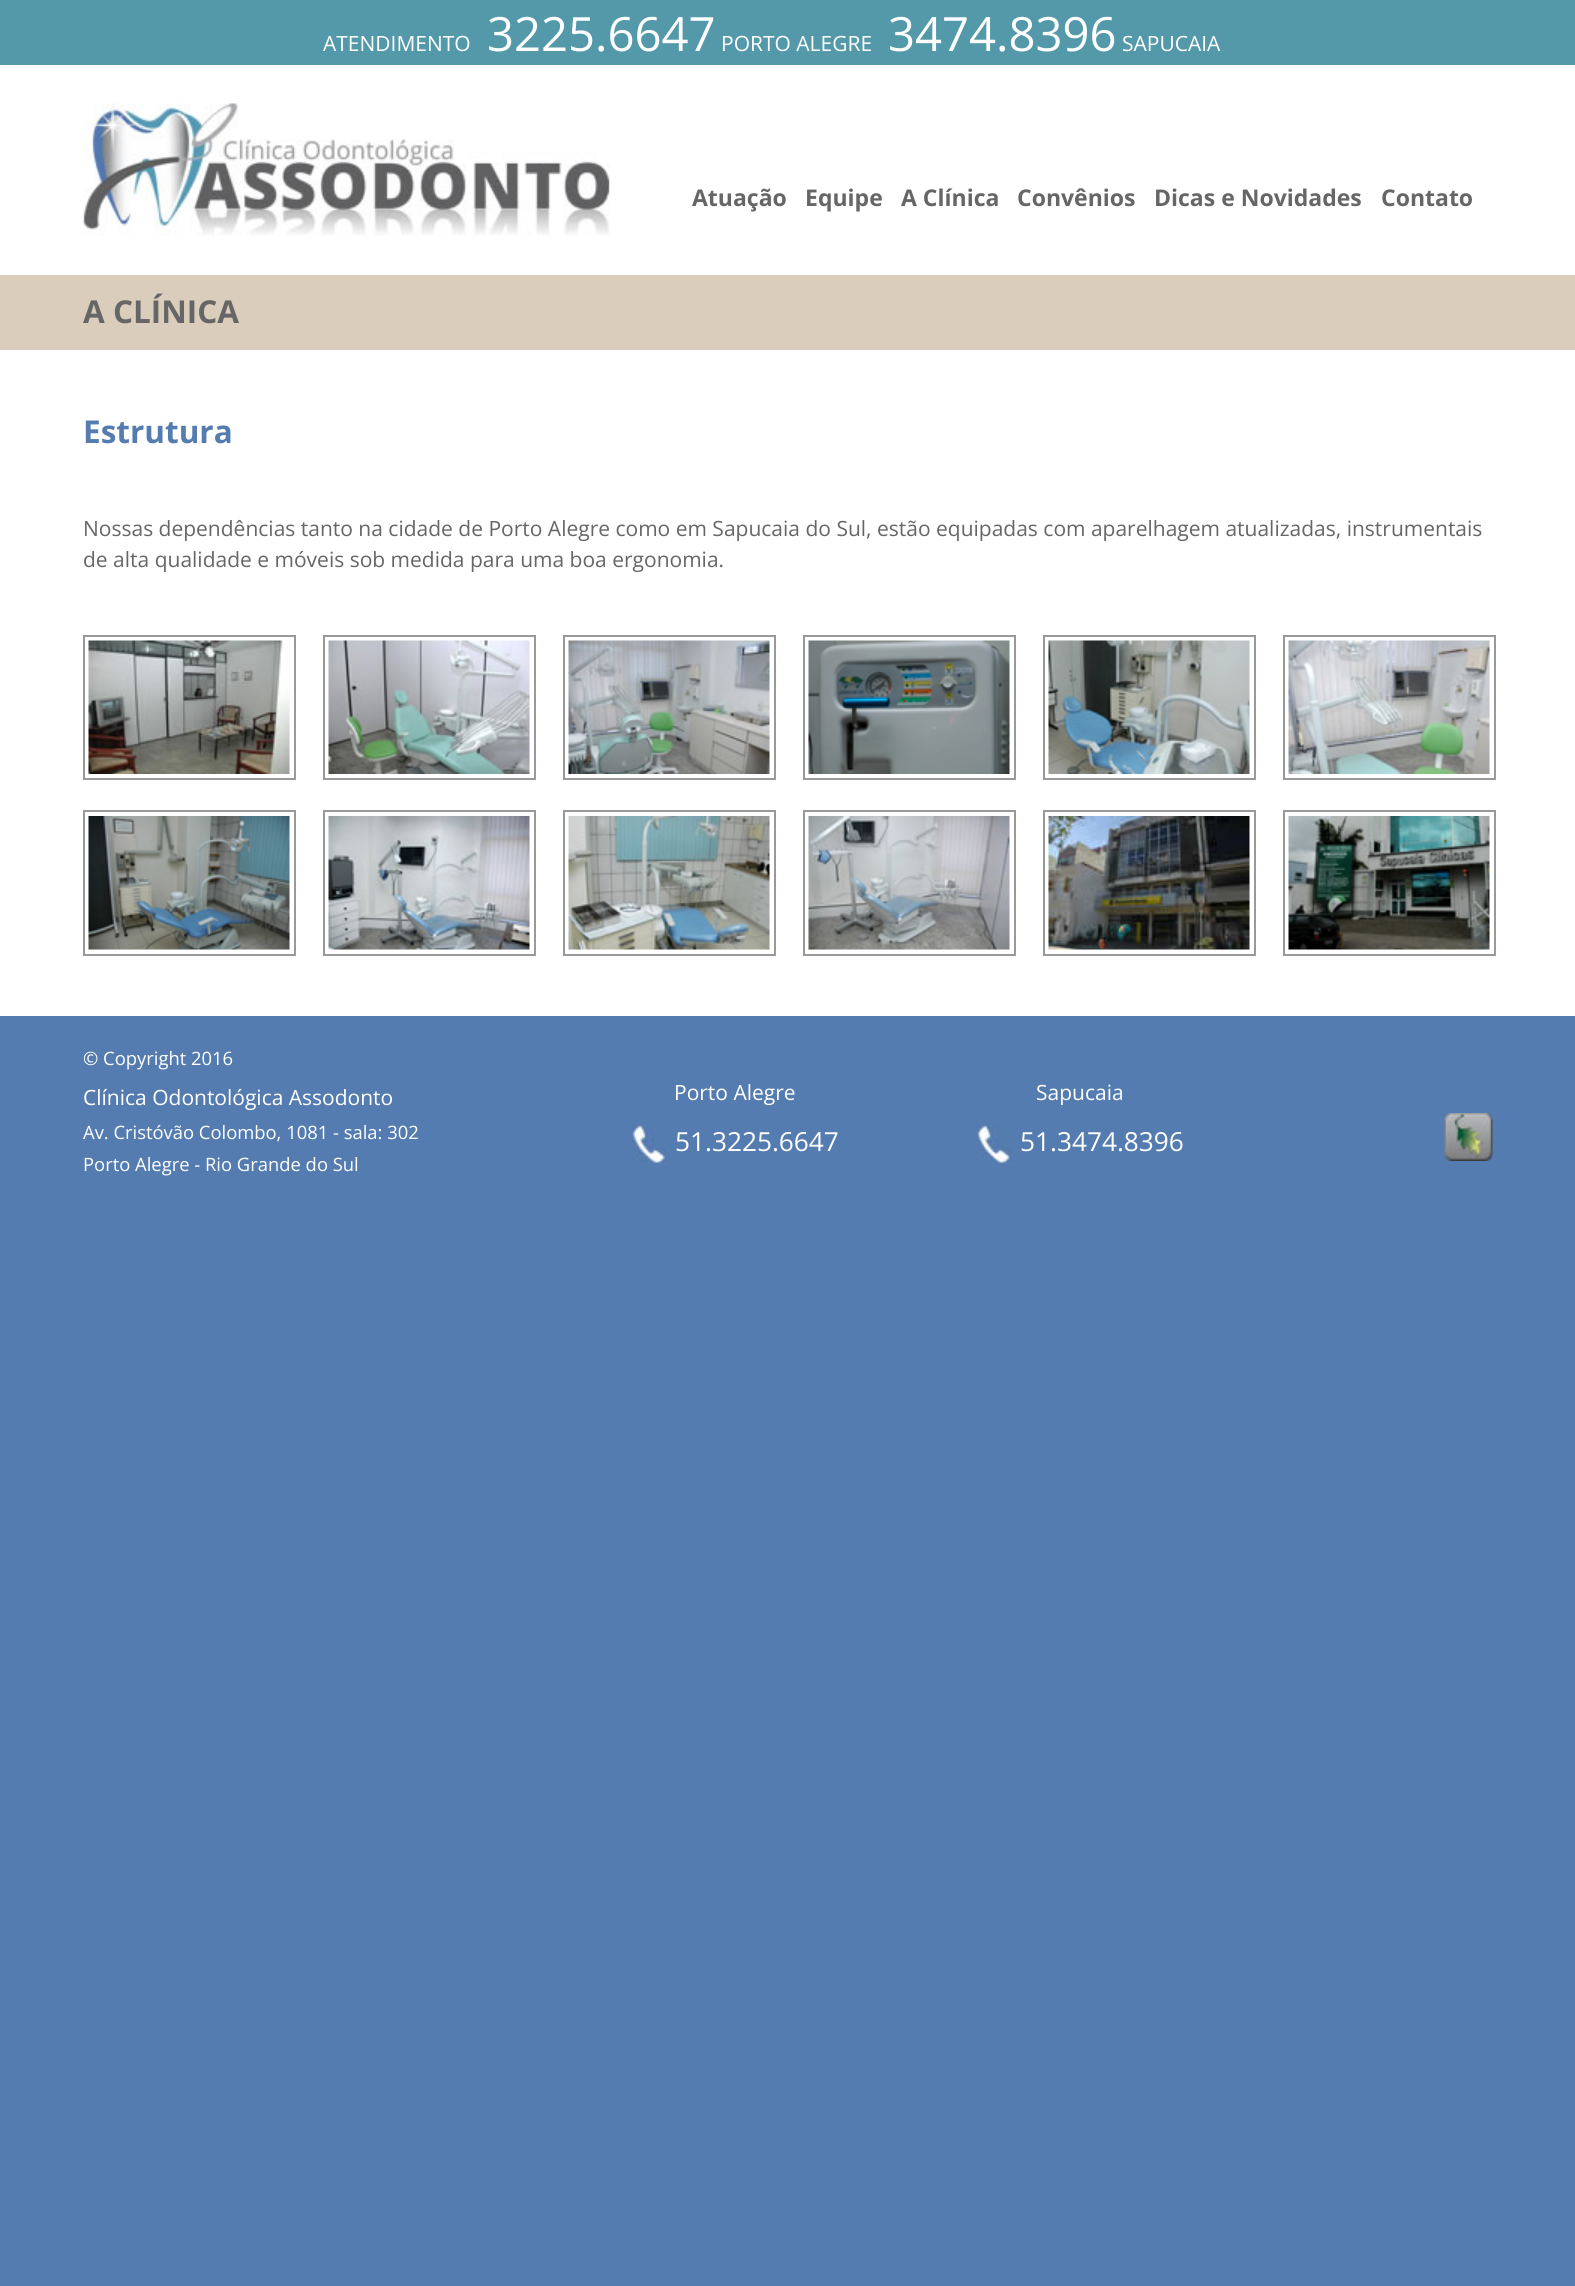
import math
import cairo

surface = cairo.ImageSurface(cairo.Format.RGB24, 1575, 2286)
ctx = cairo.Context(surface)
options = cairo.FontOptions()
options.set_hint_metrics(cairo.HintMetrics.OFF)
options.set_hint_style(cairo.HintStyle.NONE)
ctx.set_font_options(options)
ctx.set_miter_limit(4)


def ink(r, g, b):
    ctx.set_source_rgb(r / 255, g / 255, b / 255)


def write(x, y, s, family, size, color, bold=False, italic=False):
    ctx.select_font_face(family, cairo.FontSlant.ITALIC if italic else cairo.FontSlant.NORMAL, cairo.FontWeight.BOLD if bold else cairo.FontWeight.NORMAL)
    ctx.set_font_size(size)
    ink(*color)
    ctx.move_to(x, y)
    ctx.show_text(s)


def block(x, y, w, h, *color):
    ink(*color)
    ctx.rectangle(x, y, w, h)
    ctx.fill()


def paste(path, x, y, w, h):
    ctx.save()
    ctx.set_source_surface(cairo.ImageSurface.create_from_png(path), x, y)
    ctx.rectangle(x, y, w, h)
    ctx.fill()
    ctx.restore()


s1 = dict(family="Open Sans", size=21, color=(255, 255, 255))
s2 = dict(family="Open Sans", size=47.25, color=(255, 255, 255))
s3 = dict(family="Open Sans", size=23, color=(102, 102, 102), bold=True)
s4 = dict(family="Open Sans", size=31.5, color=(102, 102, 102), bold=True)
s5 = dict(family="Open Sans", size=31.5, color=(84, 124, 176), bold=True)
s6 = dict(family="Open Sans", size=21, color=(102, 102, 102))
s7 = dict(family="Open Sans", size=18.4, color=(255, 255, 255))
s8 = dict(family="Open Sans", size=26.25, color=(255, 255, 255))

ink(84, 124, 176)
ctx.paint()
block(0, 65, 1575, 210, 255, 255, 255)
block(0, 0, 1575, 65, 83, 153, 169)
write(323, 51, "ATENDIMENTO", **s1)
write(487, 51, "3225.6647", **s2)
write(721, 51, "PORTO ALEGRE", **s1)
write(888, 51, "3474.8396", **s2)
write(1122, 51, "SAPUCAIA", **s1)
paste("pic1.png", 83, 103, 527, 133)
write(692, 206, "Atuação", **s3)
write(805, 206, "Equipe", **s3)
write(901, 206, "A Clínica", **s3)
write(1017, 206, "Convênios", **s3)
write(1154, 206, "Dicas e Novidades", **s3)
write(1381, 206, "Contato", **s3)
block(0, 275, 1575, 75, 218, 205, 188)
write(83, 323, "A CLÍNICA", **s4)
block(0, 350, 1575, 666, 255, 255, 255)
write(83, 443, "Estrutura", **s5)
write(83, 536, "Nossas dependências tanto na cidade de Porto Alegre como em Sapucaia do Sul, estão equipadas com aparelhagem atualizadas, instrumentais", **s6)
write(83, 567, "de alta qualidade e móveis sob medida para uma boa ergonomia.", **s6)
ctx.rectangle(84, 636, 211, 143)
ink(153, 153, 153)
ctx.stroke()
paste("pic2.png", 88, 640, 202, 134)
ctx.rectangle(324, 636, 211, 143)
ctx.stroke()
paste("pic3.png", 328, 640, 202, 134)
ctx.rectangle(564, 636, 211, 143)
ctx.stroke()
paste("pic4.png", 568, 640, 202, 134)
ctx.rectangle(804, 636, 211, 143)
ctx.stroke()
paste("pic5.png", 808, 640, 202, 134)
ctx.rectangle(1044, 636, 211, 143)
ctx.stroke()
paste("pic6.png", 1048, 640, 202, 134)
ctx.rectangle(1284, 636, 211, 143)
ctx.stroke()
paste("pic7.png", 1288, 640, 202, 134)
ctx.rectangle(84, 811, 211, 144)
ctx.stroke()
paste("pic8.png", 88, 816, 202, 134)
ctx.rectangle(324, 811, 211, 144)
ctx.stroke()
paste("pic9.png", 328, 816, 202, 134)
ctx.rectangle(564, 811, 211, 144)
ctx.stroke()
paste("pic10.png", 568, 816, 202, 134)
ctx.rectangle(804, 811, 211, 144)
ctx.stroke()
paste("pic11.png", 808, 816, 202, 134)
ctx.rectangle(1044, 811, 211, 144)
ctx.stroke()
paste("pic12.png", 1048, 816, 202, 134)
ctx.rectangle(1284, 811, 211, 144)
ctx.stroke()
paste("pic13.png", 1288, 816, 202, 134)
write(83, 1065, "© Copyright 2016", **s7)
write(83, 1105, "Clínica Odontológica Assodonto", **s1)
write(83, 1139, "Av. Cristóvão Colombo, 1081 - sala: 302", **s7)
write(83, 1171, "Porto Alegre - Rio Grande do Sul", **s7)
write(674, 1100, "Porto Alegre", **s1)
write(1036, 1100, "Sapucaia", **s1)
paste("pic14.png", 631, 1125, 37, 39)
write(675, 1151, "51.3225.6647", **s8)
paste("pic15.png", 976, 1125, 37, 39)
write(1020, 1151, "51.3474.8396", **s8)
paste("pic16.png", 1444, 1113, 49, 48)
surface.write_to_png("screenshot.png")
